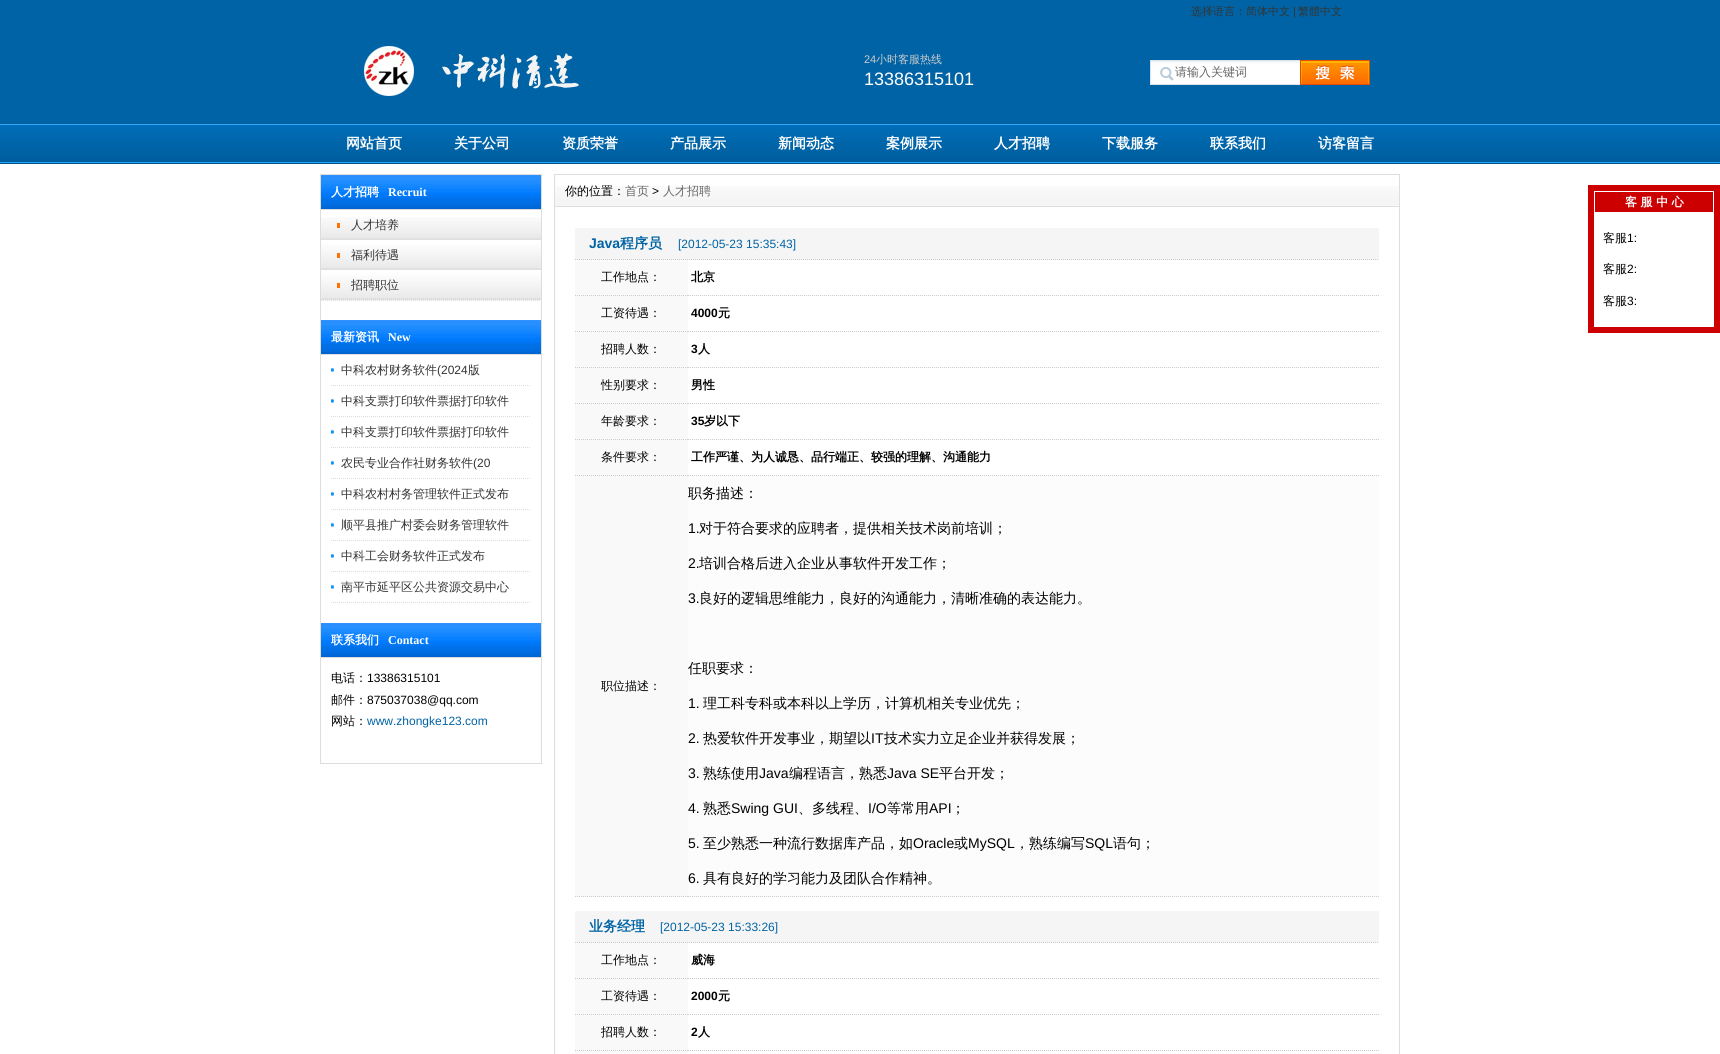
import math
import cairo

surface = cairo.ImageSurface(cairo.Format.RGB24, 1720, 1054)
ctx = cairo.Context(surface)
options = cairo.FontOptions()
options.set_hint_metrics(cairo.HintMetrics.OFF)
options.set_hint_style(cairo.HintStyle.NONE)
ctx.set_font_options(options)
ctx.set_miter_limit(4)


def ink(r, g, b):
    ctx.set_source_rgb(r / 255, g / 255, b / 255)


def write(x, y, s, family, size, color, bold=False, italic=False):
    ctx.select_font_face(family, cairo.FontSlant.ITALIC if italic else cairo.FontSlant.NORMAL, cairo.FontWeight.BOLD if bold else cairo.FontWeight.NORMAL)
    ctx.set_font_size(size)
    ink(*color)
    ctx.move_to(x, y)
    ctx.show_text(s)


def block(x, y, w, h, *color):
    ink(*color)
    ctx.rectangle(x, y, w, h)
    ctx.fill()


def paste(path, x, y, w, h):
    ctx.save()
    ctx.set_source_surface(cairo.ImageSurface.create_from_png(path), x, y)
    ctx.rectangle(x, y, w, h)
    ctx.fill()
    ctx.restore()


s1 = dict(family="WenQuanYi Zen Hei Medium", size=11, color=(51, 51, 51))
s2 = dict(family="Liberation Sans", size=11, color=(51, 51, 51))
s3 = dict(family="Liberation Sans", size=11, color=(204, 204, 204))
s4 = dict(family="WenQuanYi Zen Hei Medium", size=11, color=(204, 204, 204))
s5 = dict(family="Liberation Sans", size=18, color=(255, 255, 255))
s6 = dict(family="WenQuanYi Zen Hei Medium", size=12, color=(102, 102, 102))
s7 = dict(family="WenQuanYi Zen Hei", size=14, color=(255, 255, 255), bold=True)
s8 = dict(family="WenQuanYi Zen Hei", size=12, color=(255, 255, 255), bold=True)
s9 = dict(family="Liberation Serif", size=12, color=(255, 255, 255), bold=True)
s10 = dict(family="WenQuanYi Zen Hei Medium", size=12, color=(51, 51, 51))
s11 = dict(family="Liberation Sans", size=12, color=(51, 51, 51))
s12 = dict(family="WenQuanYi Zen Hei Medium", size=12, color=(0, 0, 0))
s13 = dict(family="Liberation Sans", size=12, color=(0, 0, 0))
s14 = dict(family="Liberation Sans", size=12, color=(0, 99, 165))
s15 = dict(family="Liberation Sans", size=14, color=(0, 99, 165), bold=True)
s16 = dict(family="WenQuanYi Zen Hei", size=14, color=(0, 99, 165), bold=True)
s17 = dict(family="WenQuanYi Zen Hei", size=12, color=(0, 0, 0), bold=True)
s18 = dict(family="Liberation Sans", size=12, color=(0, 0, 0), bold=True)
s19 = dict(family="WenQuanYi Zen Hei Medium", size=14, color=(0, 0, 0))
s20 = dict(family="Liberation Sans", size=14, color=(0, 0, 0))

ink(255, 255, 255)
ctx.paint()
block(0, 0, 1720, 123, 0, 99, 165)
write(1191, 15, "选择语言：简体中文", **s1)
write(1293, 15, "|", **s2)
write(1298, 15, "繁體中文", **s1)
paste("pic1.png", 364, 46, 215, 50)
write(864, 63, "24", **s3)
write(876, 63, "小时客服热线", **s4)
write(864, 85, "13386315101", **s5)
paste("pic2.png", 1150, 60, 220, 25)
write(1175, 76, "请输入关键词", **s6)
paste("pic3.png", 0, 123, 1720, 41)
write(346, 148, "网站首页", **s7)
write(454, 148, "关于公司", **s7)
write(562, 148, "资质荣誉", **s7)
write(670, 148, "产品展示", **s7)
write(778, 148, "新闻动态", **s7)
write(886, 148, "案例展示", **s7)
write(994, 148, "人才招聘", **s7)
write(1102, 148, "下载服务", **s7)
write(1210, 148, "联系我们", **s7)
write(1318, 148, "访客留言", **s7)
ctx.rectangle(320.5, 174.5, 221, 589)
ink(221, 221, 221)
ctx.set_line_width(1)
ctx.stroke()
paste("pic4.png", 321, 175, 220, 34)
block(321, 209, 220, 1, 221, 221, 221)
write(331, 196, "人才招聘", **s8)
write(388, 196, "Recruit", **s9)
paste("pic5.png", 321, 217, 220, 23)
block(337, 223, 3, 5, 255, 113, 0)
write(351, 229, "人才培养", **s10)
paste("pic6.png", 321, 240, 220, 30)
block(337, 253, 3, 5, 255, 113, 0)
write(351, 259, "福利待遇", **s10)
paste("pic6.png", 321, 270, 220, 30)
block(337, 283, 3, 5, 255, 113, 0)
ctx.new_path()
ctx.move_to(321, 300.5)
ctx.line_to(541, 300.5)
ink(221, 221, 221)
ctx.set_dash([1, 1])
ctx.stroke()
write(351, 289, "招聘职位", **s10)
paste("pic4.png", 321, 320, 220, 34)
block(321, 354, 220, 1, 221, 221, 221)
write(331, 341, "最新资讯", **s8)
write(388, 341, "New", **s9)
paste("pic7.png", 331, 367, 3, 5)
ctx.new_path()
ctx.move_to(331, 385.5)
ctx.line_to(531, 385.5)
ink(221, 221, 221)
ctx.stroke()
write(341, 374, "中科农村财务软件", **s10)
write(437, 374, "(2024", **s11)
write(468, 374, "版", **s10)
paste("pic7.png", 331, 398, 3, 5)
ctx.new_path()
ctx.move_to(331, 416.5)
ctx.line_to(531, 416.5)
ink(221, 221, 221)
ctx.stroke()
write(341, 405, "中科支票打印软件票据打印软件", **s10)
paste("pic7.png", 331, 429, 3, 5)
ctx.new_path()
ctx.move_to(331, 447.5)
ctx.line_to(531, 447.5)
ink(221, 221, 221)
ctx.stroke()
write(341, 436, "中科支票打印软件票据打印软件", **s10)
paste("pic7.png", 331, 460, 3, 5)
ctx.new_path()
ctx.move_to(331, 478.5)
ctx.line_to(531, 478.5)
ink(221, 221, 221)
ctx.stroke()
write(341, 467, "农民专业合作社财务软件", **s10)
write(473, 467, "(20", **s11)
paste("pic7.png", 331, 491, 3, 5)
ctx.new_path()
ctx.move_to(331, 509.5)
ctx.line_to(531, 509.5)
ink(221, 221, 221)
ctx.stroke()
write(341, 498, "中科农村村务管理软件正式发布", **s10)
paste("pic7.png", 331, 522, 3, 5)
ctx.new_path()
ctx.move_to(331, 540.5)
ctx.line_to(531, 540.5)
ink(221, 221, 221)
ctx.stroke()
write(341, 529, "顺平县推广村委会财务管理软件", **s10)
paste("pic7.png", 331, 553, 3, 5)
ctx.new_path()
ctx.move_to(331, 571.5)
ctx.line_to(531, 571.5)
ink(221, 221, 221)
ctx.stroke()
write(341, 560, "中科工会财务软件正式发布", **s10)
paste("pic7.png", 331, 584, 3, 5)
ctx.new_path()
ctx.move_to(331, 602.5)
ctx.line_to(531, 602.5)
ink(221, 221, 221)
ctx.stroke()
write(341, 591, "南平市延平区公共资源交易中心", **s10)
paste("pic4.png", 321, 623, 220, 34)
block(321, 657, 220, 1, 221, 221, 221)
write(331, 644, "联系我们", **s8)
write(388, 644, "Contact", **s9)
write(331, 682, "电话：", **s12)
write(367, 682, "13386315101", **s13)
write(331, 704, "邮件：", **s12)
write(367, 704, "875037038@qq.com", **s13)
write(331, 725, "网站：", **s12)
write(367, 725, "www.zhongke123.com", **s14)
ctx.rectangle(554.5, 174.5, 845, 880)
ink(221, 221, 221)
ctx.set_dash([])
ctx.stroke()
paste("pic8.png", 555, 186, 844, 21)
write(565, 195, "你的位置：", **s12)
write(625, 195, "首页", **s6)
write(652, 195, ">", **s13)
write(663, 195, "人才招聘", **s6)
block(575, 228, 804, 32, 245, 245, 245)
ctx.new_path()
ctx.move_to(575, 259.5)
ctx.line_to(1379, 259.5)
ink(204, 204, 204)
ctx.set_dash([1, 1])
ctx.stroke()
write(589, 248, "Java", **s15)
write(620, 248, "程序员", **s16)
write(678, 248, "[2012-05-23 15:35:43]", **s14)
block(575, 260, 113, 637, 249, 249, 249)
ctx.new_path()
ctx.move_to(575, 295.5)
ctx.line_to(688, 295.5)
ink(204, 204, 204)
ctx.stroke()
write(601, 281, "工作地点：", **s12)
ctx.new_path()
ctx.move_to(688, 295.5)
ctx.line_to(1379, 295.5)
ink(204, 204, 204)
ctx.stroke()
write(691, 281, "北京", **s17)
ctx.new_path()
ctx.move_to(575, 331.5)
ctx.line_to(688, 331.5)
ink(204, 204, 204)
ctx.stroke()
write(601, 317, "工资待遇：", **s12)
ctx.new_path()
ctx.move_to(688, 331.5)
ctx.line_to(1379, 331.5)
ink(204, 204, 204)
ctx.stroke()
write(691, 317, "4000", **s18)
write(718, 317, "元", **s17)
ctx.new_path()
ctx.move_to(575, 367.5)
ctx.line_to(688, 367.5)
ink(204, 204, 204)
ctx.stroke()
write(601, 353, "招聘人数：", **s12)
ctx.new_path()
ctx.move_to(688, 367.5)
ctx.line_to(1379, 367.5)
ink(204, 204, 204)
ctx.stroke()
write(691, 353, "3", **s18)
write(698, 353, "人", **s17)
ctx.new_path()
ctx.move_to(575, 403.5)
ctx.line_to(688, 403.5)
ink(204, 204, 204)
ctx.stroke()
write(601, 389, "性别要求：", **s12)
ctx.new_path()
ctx.move_to(688, 403.5)
ctx.line_to(1379, 403.5)
ink(204, 204, 204)
ctx.stroke()
write(691, 389, "男性", **s17)
ctx.new_path()
ctx.move_to(575, 439.5)
ctx.line_to(688, 439.5)
ink(204, 204, 204)
ctx.stroke()
write(601, 425, "年龄要求：", **s12)
ctx.new_path()
ctx.move_to(688, 439.5)
ctx.line_to(1379, 439.5)
ink(204, 204, 204)
ctx.stroke()
write(691, 425, "35", **s18)
write(704, 425, "岁以下", **s17)
ctx.new_path()
ctx.move_to(575, 475.5)
ctx.line_to(688, 475.5)
ink(204, 204, 204)
ctx.stroke()
write(601, 461, "条件要求：", **s12)
ctx.new_path()
ctx.move_to(688, 475.5)
ctx.line_to(1379, 475.5)
ink(204, 204, 204)
ctx.stroke()
write(691, 461, "工作严谨、为人诚恳、品行端正、较强的理解、沟通能力", **s17)
ctx.new_path()
ctx.move_to(575, 896.5)
ctx.line_to(688, 896.5)
ink(204, 204, 204)
ctx.stroke()
write(601, 690, "职位描述：", **s12)
block(688, 476, 691, 421, 252, 252, 252)
ctx.new_path()
ctx.move_to(688, 896.5)
ctx.line_to(1379, 896.5)
ink(204, 204, 204)
ctx.stroke()
write(688, 498, "职务描述：", **s19)
write(688, 533, "1.", **s20)
write(699, 533, "对于符合要求的应聘者，提供相关技术岗前培训；", **s19)
write(688, 568, "2.", **s20)
write(699, 568, "培训合格后进入企业从事软件开发工作；", **s19)
write(688, 603, "3.", **s20)
write(699, 603, "良好的逻辑思维能力，良好的沟通能力，清晰准确的表达能力。", **s19)
write(688, 673, "任职要求：", **s19)
write(688, 708, "1.", **s20)
write(703, 708, "理工科专科或本科以上学历，计算机相关专业优先；", **s19)
write(688, 743, "2.", **s20)
write(703, 743, "热爱软件开发事业，期望以", **s19)
write(871, 743, "IT", **s20)
write(884, 743, "技术实力立足企业并获得发展；", **s19)
write(688, 778, "3.", **s20)
write(703, 778, "熟练使用", **s19)
write(759, 778, "Java", **s20)
write(789, 778, "编程语言，熟悉", **s19)
write(887, 778, "Java SE", **s20)
write(939, 778, "平台开发；", **s19)
write(688, 813, "4.", **s20)
write(703, 813, "熟悉", **s19)
write(731, 813, "Swing GUI", **s20)
write(798, 813, "、多线程、", **s19)
write(868, 813, "I/O", **s20)
write(887, 813, "等常用", **s19)
write(929, 813, "API", **s20)
write(951, 813, "；", **s19)
write(688, 848, "5.", **s20)
write(703, 848, "至少熟悉一种流行数据库产品，如", **s19)
write(913, 848, "Oracle", **s20)
write(954, 848, "或", **s19)
write(968, 848, "MySQL", **s20)
write(1015, 848, "，熟练编写", **s19)
write(1085, 848, "SQL", **s20)
write(1113, 848, "语句；", **s19)
write(688, 883, "6.", **s20)
write(703, 883, "具有良好的学习能力及团队合作精神。", **s19)
block(575, 911, 804, 32, 245, 245, 245)
ctx.new_path()
ctx.move_to(575, 942.5)
ctx.line_to(1379, 942.5)
ink(204, 204, 204)
ctx.stroke()
write(589, 931, "业务经理", **s16)
write(660, 931, "[2012-05-23 15:33:26]", **s14)
block(575, 943, 113, 111, 249, 249, 249)
ctx.new_path()
ctx.move_to(575, 978.5)
ctx.line_to(688, 978.5)
ink(204, 204, 204)
ctx.stroke()
write(601, 964, "工作地点：", **s12)
ctx.new_path()
ctx.move_to(688, 978.5)
ctx.line_to(1379, 978.5)
ink(204, 204, 204)
ctx.stroke()
write(691, 964, "威海", **s17)
ctx.new_path()
ctx.move_to(575, 1014.5)
ctx.line_to(688, 1014.5)
ink(204, 204, 204)
ctx.stroke()
write(601, 1000, "工资待遇：", **s12)
ctx.new_path()
ctx.move_to(688, 1014.5)
ctx.line_to(1379, 1014.5)
ink(204, 204, 204)
ctx.stroke()
write(691, 1000, "2000", **s18)
write(718, 1000, "元", **s17)
ctx.new_path()
ctx.move_to(575, 1050.5)
ctx.line_to(688, 1050.5)
ink(204, 204, 204)
ctx.stroke()
write(601, 1036, "招聘人数：", **s12)
ctx.new_path()
ctx.move_to(688, 1050.5)
ctx.line_to(1379, 1050.5)
ink(204, 204, 204)
ctx.stroke()
write(691, 1036, "2", **s18)
write(698, 1036, "人", **s17)
ctx.rectangle(1591, 188, 126, 142)
ink(204, 0, 0)
ctx.set_line_width(6)
ctx.set_dash([])
ctx.stroke()
block(1595, 192, 118, 20, 204, 0, 0)
write(1625, 206, "客 服 中 心", **s8)
write(1603, 242, "客服", **s12)
write(1627, 242, "1:", **s13)
write(1603, 273, "客服", **s12)
write(1627, 273, "2:", **s13)
write(1603, 305, "客服", **s12)
write(1627, 305, "3:", **s13)
surface.write_to_png("screenshot.png")
